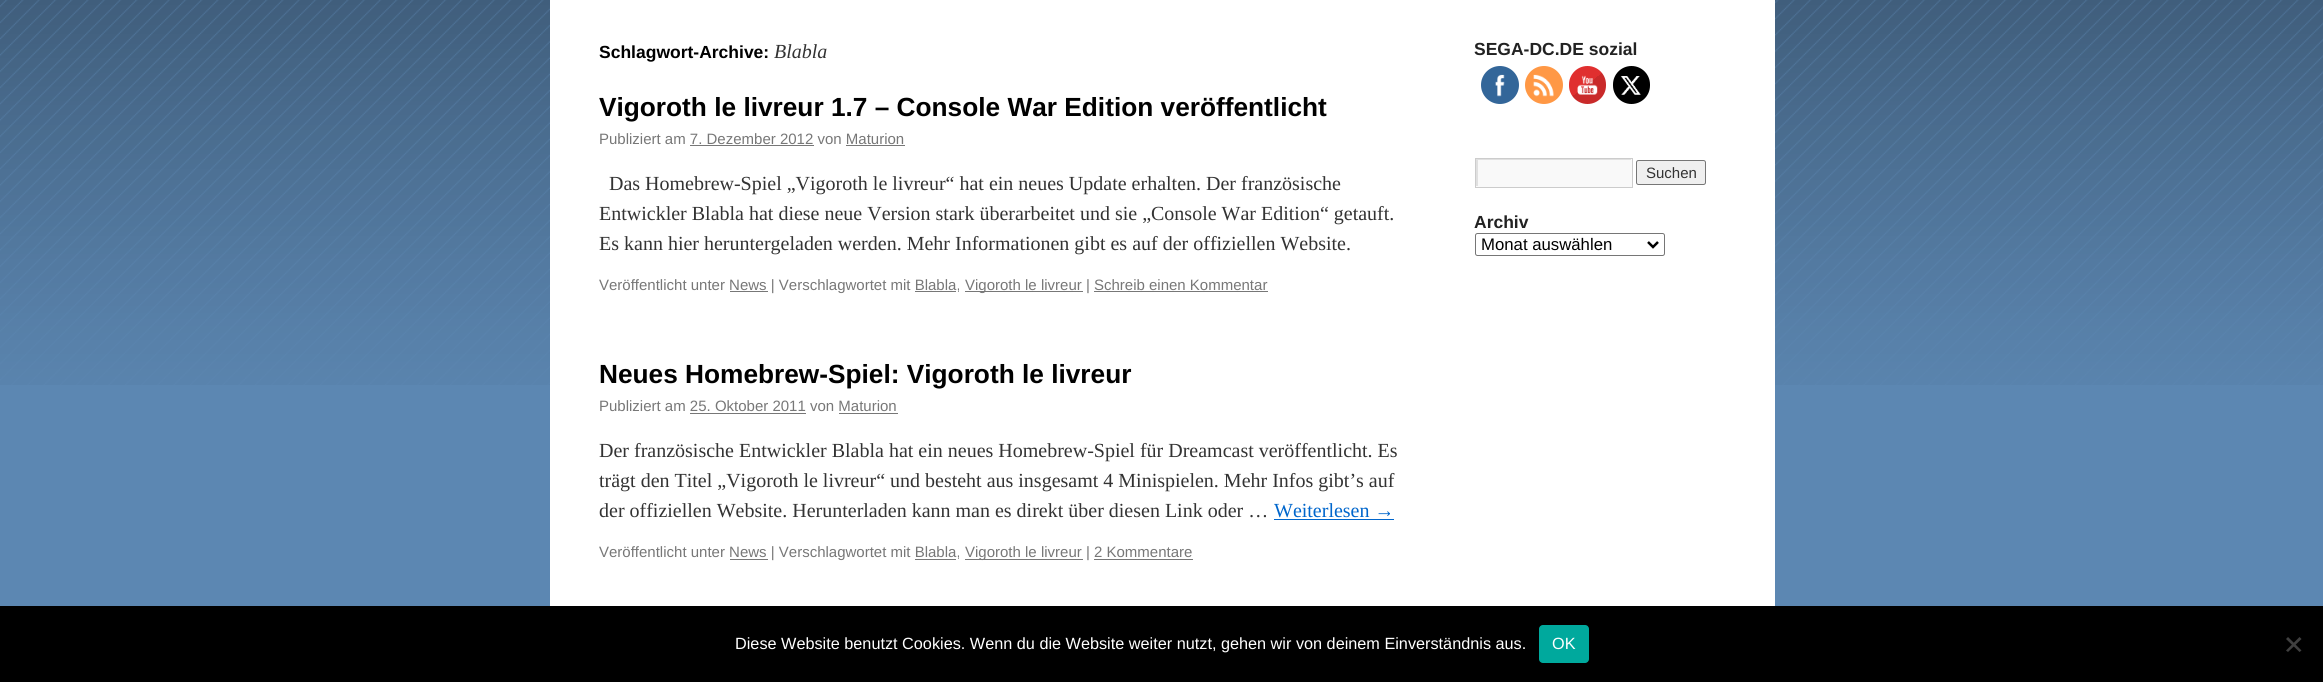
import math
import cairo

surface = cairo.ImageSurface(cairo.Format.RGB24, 2323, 682)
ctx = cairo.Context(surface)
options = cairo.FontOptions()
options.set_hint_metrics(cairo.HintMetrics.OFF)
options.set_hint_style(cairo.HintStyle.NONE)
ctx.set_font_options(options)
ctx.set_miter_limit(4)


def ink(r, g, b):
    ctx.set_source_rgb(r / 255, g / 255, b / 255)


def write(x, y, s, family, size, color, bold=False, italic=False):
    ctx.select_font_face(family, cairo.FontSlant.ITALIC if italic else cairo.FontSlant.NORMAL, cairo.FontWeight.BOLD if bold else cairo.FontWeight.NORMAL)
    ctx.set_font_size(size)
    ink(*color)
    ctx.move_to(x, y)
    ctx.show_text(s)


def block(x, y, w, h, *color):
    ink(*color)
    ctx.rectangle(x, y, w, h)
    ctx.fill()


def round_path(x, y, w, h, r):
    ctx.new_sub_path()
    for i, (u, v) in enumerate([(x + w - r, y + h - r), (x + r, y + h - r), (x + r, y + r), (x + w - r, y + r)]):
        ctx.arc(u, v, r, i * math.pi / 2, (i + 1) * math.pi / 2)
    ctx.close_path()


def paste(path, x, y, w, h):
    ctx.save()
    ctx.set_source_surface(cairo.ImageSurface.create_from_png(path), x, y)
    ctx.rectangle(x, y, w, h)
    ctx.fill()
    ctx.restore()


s1 = dict(family="Liberation Sans", size=17.5, color=(0, 0, 0), bold=True)
s2 = dict(family="Liberation Serif", size=20, color=(51, 51, 51), italic=True)
s3 = dict(family="Liberation Sans", size=26.25, color=(0, 0, 0), bold=True)
s4 = dict(family="Liberation Sans", size=15, color=(119, 119, 119))
s5 = dict(family="Liberation Serif", size=20, color=(51, 51, 51))
s6 = dict(family="Liberation Serif", size=20, color=(0, 102, 204))
s7 = dict(family="Liberation Sans", size=17.5, color=(34, 34, 34), bold=True)
s8 = dict(family="Liberation Sans", size=15, color=(51, 51, 51))
s9 = dict(family="Liberation Sans", size=16.75, color=(0, 0, 0))
s10 = dict(family="Liberation Sans", size=16.25, color=(255, 255, 255))

ink(92, 135, 178)
ctx.paint()
paste("pic1.png", 0, 0, 2323, 385)
block(550, 0, 1225, 606, 255, 255, 255)
write(599, 58, "Schlagwort-Archive:", **s1)
write(774, 58, "Blabla", **s2)
write(599, 116, "Vigoroth le livreur 1.7 – Console War Edition veröffentlicht", **s3)
write(599, 144, "Publiziert am 7. Dezember 2012 von Maturion", **s4)
block(690, 145, 124, 1, 119, 119, 119)
block(846, 145, 59, 1, 119, 119, 119)
write(609, 190, "Das Homebrew-Spiel „Vigoroth le livreur“ hat ein neues Update erhalten. Der französische", **s5)
write(599, 220, "Entwickler Blabla hat diese neue Version stark überarbeitet und sie „Console War Edition“ getauft.", **s5)
write(599, 250, "Es kann hier heruntergeladen werden. Mehr Informationen gibt es auf der offiziellen Website.", **s5)
write(599, 290, "Veröffentlicht unter News | Verschlagwortet mit Blabla,", **s4)
block(730, 291, 38, 1, 119, 119, 119)
block(965, 291, 118, 1, 119, 119, 119)
write(965, 290, "Vigoroth le livreur | Schreib einen Kommentar", **s4)
block(915, 291, 41, 1, 119, 119, 119)
block(1094, 291, 174, 1, 119, 119, 119)
write(599, 383, "Neues Homebrew-Spiel: Vigoroth le livreur", **s3)
write(599, 411, "Publiziert am 25. Oktober 2011 von Maturion", **s4)
block(690, 413, 116, 1, 119, 119, 119)
block(839, 413, 59, 1, 119, 119, 119)
write(599, 457, "Der französische Entwickler Blabla hat ein neues Homebrew-Spiel für Dreamcast veröffentlicht. Es", **s5)
write(599, 487, "trägt den Titel „Vigoroth le livreur“ und besteht aus insgesamt 4 Minispielen. Mehr Infos gibt’s auf", **s5)
write(599, 517, "der offiziellen Website. Herunterladen kann man es direkt über diesen Link oder …", **s5)
write(1274, 517, "Weiterlesen →", **s6)
block(1274, 519, 120, 1, 0, 102, 204)
write(599, 557, "Veröffentlicht unter News | Verschlagwortet mit Blabla,", **s4)
block(730, 559, 38, 1, 119, 119, 119)
block(965, 559, 118, 1, 119, 119, 119)
write(965, 557, "Vigoroth le livreur | 2 Kommentare", **s4)
block(915, 559, 41, 1, 119, 119, 119)
block(1094, 559, 99, 1, 119, 119, 119)
write(1474, 55, "SEGA-DC.DE sozial", **s7)
ink(51, 102, 153)
ctx.new_path()
ctx.arc(1500, 85, 19, 0, 2 * math.pi)
ctx.fill()
paste("pic2.png", 1495, 74, 10, 23)
ink(255, 152, 69)
ctx.arc(1544, 85, 19, 0, 2 * math.pi)
ctx.fill()
paste("pic3.png", 1533, 74, 21, 23)
gradient = cairo.LinearGradient(1571, 64, 1604, 106)
gradient.add_color_stop_rgba(0.14, 0.878, 0.184, 0.184, 1)
gradient.add_color_stop_rgba(0.49, 0.878, 0.184, 0.184, 1)
gradient.add_color_stop_rgba(0.49, 0.788, 0.165, 0.165, 1)
gradient.add_color_stop_rgba(0.85, 0.788, 0.165, 0.165, 1)
ctx.set_source(gradient)
round_path(1569, 66, 37, 38, 18.5)
ctx.fill()
paste("pic4.png", 1577, 75, 21, 20)
ink(0, 0, 0)
round_path(1613, 66, 37, 38, 18.5)
ctx.fill()
paste("pic5.png", 1620, 76, 21, 19)
block(1476, 159, 156, 28, 249, 249, 249)
ctx.save()
ctx.rectangle(1476, 159, 155, 27)
ctx.clip()
ink(224, 224, 224)
ctx.set_fill_rule(cairo.FillRule.EVEN_ODD)
ctx.new_path()
ctx.move_to(1352, 35)
ctx.line_to(1755, 35)
ctx.line_to(1755, 310)
ctx.line_to(1352, 310)
ctx.close_path()
ctx.move_to(1478, 160)
ctx.line_to(1632, 160)
ctx.line_to(1632, 188)
ctx.line_to(1478, 188)
ctx.close_path()
ctx.fill()
ctx.restore()
ctx.rectangle(1475.5, 158.5, 157, 29)
ink(204, 204, 204)
ctx.set_line_width(1)
ctx.stroke()
ink(239, 239, 239)
round_path(1636.5, 160.5, 69, 24, 2)
ctx.fill_preserve()
ink(118, 118, 118)
ctx.stroke()
write(1646, 178, "Suchen", **s8)
write(1474, 228, "Archiv", **s7)
round_path(1475.5, 233.5, 189, 22, 2)
ink(118, 118, 118)
ctx.stroke()
ctx.new_path()
ctx.move_to(1648, 242)
ctx.line_to(1653, 247)
ctx.line_to(1658, 242)
ink(0, 0, 0)
ctx.set_line_width(2.5)
ctx.stroke()
write(1481, 250, "Monat auswählen", **s9)
block(0, 606, 2323, 76, 0, 0, 0)
write(735, 649, "Diese Website benutzt Cookies. Wenn du die Website weiter nutzt, gehen wir von deinem Einverständnis aus.", **s10)
ink(0, 169, 157)
round_path(1539, 625, 50, 38, 4)
ctx.fill()
write(1552, 649, "OK", **s10)
ink(64, 64, 64)
ctx.new_path()
ctx.move_to(2299.5, 637)
ctx.line_to(2301.5, 639)
ctx.line_to(2288, 652)
ctx.line_to(2286, 650.5)
ctx.close_path()
ctx.fill()
ctx.new_path()
ctx.move_to(2286, 639)
ctx.line_to(2288, 637)
ctx.line_to(2301.5, 650.5)
ctx.line_to(2299.5, 652)
ctx.close_path()
ctx.fill()
surface.write_to_png("screenshot.png")
